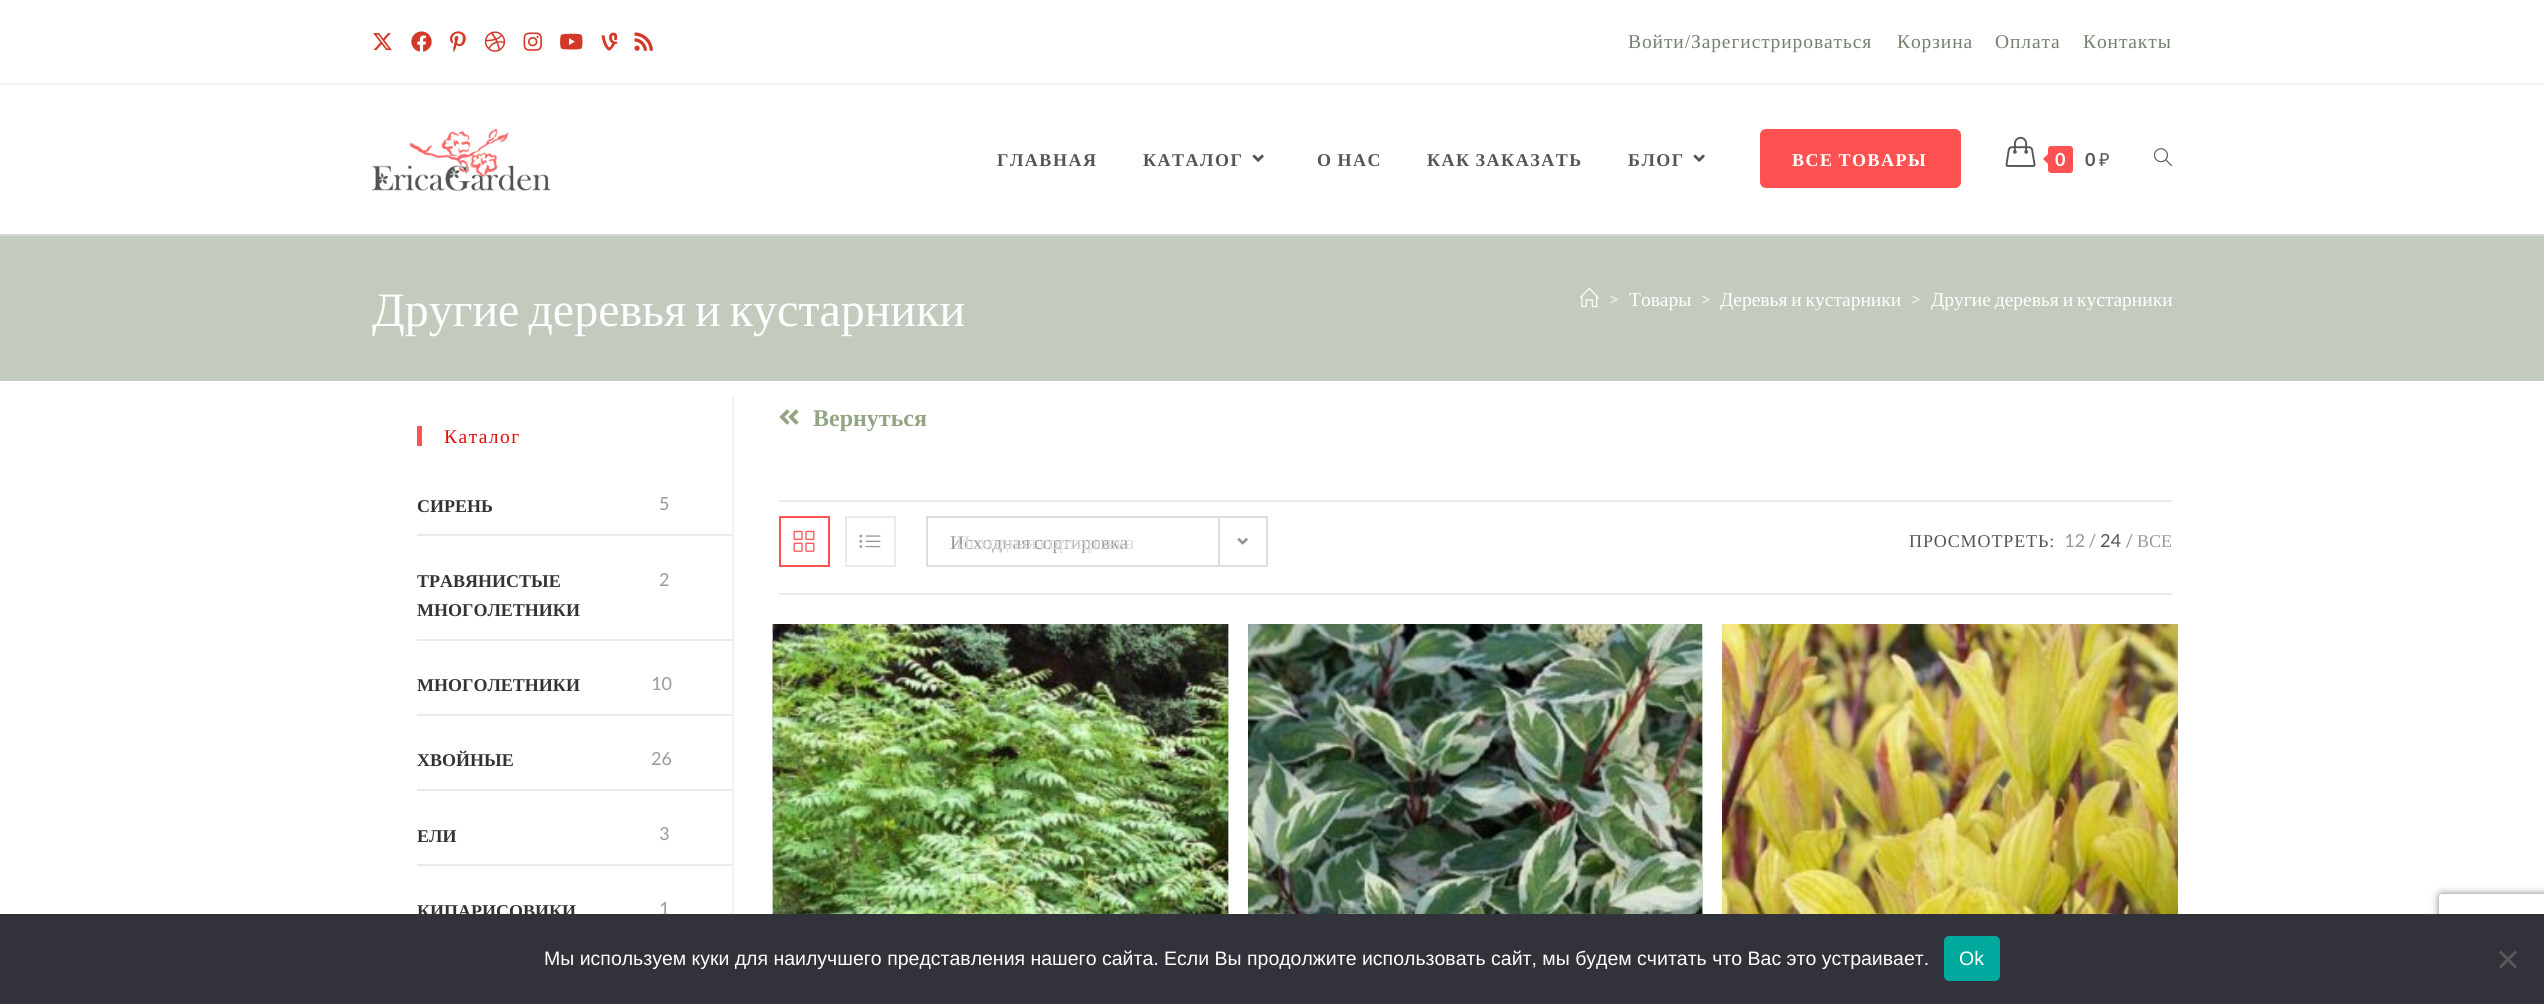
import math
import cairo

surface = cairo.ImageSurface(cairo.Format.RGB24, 2544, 1004)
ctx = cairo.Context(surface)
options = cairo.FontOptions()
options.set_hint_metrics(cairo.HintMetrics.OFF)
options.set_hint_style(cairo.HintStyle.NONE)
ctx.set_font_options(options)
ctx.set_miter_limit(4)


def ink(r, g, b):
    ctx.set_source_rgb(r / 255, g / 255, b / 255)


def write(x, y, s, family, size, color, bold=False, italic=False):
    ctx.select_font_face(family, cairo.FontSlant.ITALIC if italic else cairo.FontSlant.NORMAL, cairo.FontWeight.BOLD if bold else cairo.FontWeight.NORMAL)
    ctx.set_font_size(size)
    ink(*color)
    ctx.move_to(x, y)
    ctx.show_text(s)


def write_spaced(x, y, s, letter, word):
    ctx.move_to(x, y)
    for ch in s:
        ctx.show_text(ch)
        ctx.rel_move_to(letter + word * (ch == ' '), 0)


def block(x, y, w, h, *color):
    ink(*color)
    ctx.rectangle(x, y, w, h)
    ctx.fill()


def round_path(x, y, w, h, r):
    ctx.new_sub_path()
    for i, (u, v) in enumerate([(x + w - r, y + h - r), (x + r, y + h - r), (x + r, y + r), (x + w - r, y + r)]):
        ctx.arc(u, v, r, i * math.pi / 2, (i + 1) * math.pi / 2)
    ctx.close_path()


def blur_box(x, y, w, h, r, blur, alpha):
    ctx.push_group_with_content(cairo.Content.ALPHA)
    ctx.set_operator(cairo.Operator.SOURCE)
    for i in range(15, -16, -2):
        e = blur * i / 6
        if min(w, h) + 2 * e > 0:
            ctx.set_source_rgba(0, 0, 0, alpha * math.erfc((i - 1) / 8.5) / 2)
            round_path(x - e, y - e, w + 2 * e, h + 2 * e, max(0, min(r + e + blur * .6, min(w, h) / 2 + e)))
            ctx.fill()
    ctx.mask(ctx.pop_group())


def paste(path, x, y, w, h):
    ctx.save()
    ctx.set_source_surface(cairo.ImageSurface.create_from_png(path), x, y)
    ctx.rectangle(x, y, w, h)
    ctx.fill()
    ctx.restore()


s1 = dict(family="Lato", size=18, color=(255, 255, 255), bold=True)
s2 = dict(family="Lato", size=18, color=(85, 85, 85), bold=True)
s3 = dict(family="Noto Sans", size=18, color=(85, 85, 85))
s4 = dict(family="Lato", size=19.5, color=(239, 239, 239))
s5 = dict(family="Liberation Serif", size=19.5, color=(255, 255, 255))
s6 = dict(family="Liberation Serif", size=18, color=(51, 51, 51), bold=True)
s7 = dict(family="Lato", size=18, color=(153, 153, 153))
s8 = dict(family="Liberation Serif", size=24, color=(147, 166, 131), bold=True)
s9 = dict(family="Lato", size=18, color=(85, 85, 85))
s10 = dict(family="Liberation Serif", size=18, color=(153, 153, 153))
s11 = dict(family="Liberation Sans", size=19.5, color=(255, 255, 255))

ink(255, 255, 255)
ctx.paint()
block(0, 83, 2544, 2, 241, 241, 241)
paste("pic1.png", 373, 33, 19, 18)
paste("pic2.png", 411, 31, 21, 21)
paste("pic3.png", 450, 31, 16, 21)
paste("pic4.png", 484, 31, 22, 21)
paste("pic5.png", 523, 32, 19, 19)
paste("pic6.png", 560, 33, 23, 17)
paste("pic7.png", 601, 32, 17, 19)
paste("pic8.png", 634, 32, 19, 19)
ctx.select_font_face("Liberation Serif")
ctx.set_font_size(19.5)
ink(116, 129, 109)
write_spaced(1628, 48, "Войти/Зарегистрироваться", 0.9, 0)
write_spaced(1897, 48, "Корзина", 0.9, 0)
write_spaced(1995, 48, "Оплата", 0.9, 0)
write_spaced(2083, 48, "Контакты", 0.9, 0)
block(0, 234, 2544, 2, 214, 214, 214)
paste("pic9.png", 372, 129, 179, 62)
ctx.select_font_face("Liberation Serif", cairo.FontSlant.NORMAL, cairo.FontWeight.BOLD)
ctx.set_font_size(18)
ink(85, 85, 85)
write_spaced(997, 166, "ГЛАВНАЯ", 1.5, 0)
write_spaced(1143, 166, "КАТАЛОГ", 1.5, 0)
paste("pic10.png", 1252, 154, 12, 8)
write_spaced(1317, 166, "О НАС", 1.5, -1)
write_spaced(1427, 166, "КАК ЗАКАЗАТЬ", 1.5, -1)
write_spaced(1628, 166, "БЛОГ", 1.5, 0)
paste("pic10.png", 1693, 154, 12, 8)
ink(254, 82, 82)
round_path(1760, 129, 201, 59, 6)
ctx.fill()
ink(255, 255, 255)
write_spaced(1792, 166, "ВСЕ ТОВАРЫ", 1.5, -1)
paste("pic11.png", 2005, 136, 31, 31)
ink(254, 82, 82)
round_path(2048, 146, 25, 27, 3)
ctx.fill()
ctx.new_path()
ctx.move_to(2050.5, 151.5)
ctx.line_to(2050.5, 166.5)
ctx.line_to(2043, 159)
ctx.close_path()
ctx.fill()
write(2055, 166, "0", **s1)
write(2085, 166, "0", **s2)
write(2099, 166, "₽", **s3)
paste("pic12.png", 2154, 148, 18, 19)
block(0, 236, 2544, 145, 194, 203, 190)
ctx.select_font_face("Liberation Serif")
ctx.set_font_size(48)
ink(255, 255, 255)
write_spaced(372, 326, "Другие деревья и кустарники", 0, -3)
paste("pic13.png", 1580, 287, 19, 21)
write(1608, 306, ">", **s4)
write(1629, 306, "Товары", **s5)
write(1700, 306, ">", **s4)
ctx.select_font_face("Liberation Serif")
ink(255, 255, 255)
write_spaced(1720, 306, "Деревья и кустарники", 0, -1)
write(1910, 306, ">", **s4)
ctx.select_font_face("Liberation Serif")
ink(255, 255, 255)
write_spaced(1931, 306, "Другие деревья и кустарники", 0, -1)
block(417, 426, 5, 20, 254, 82, 82)
ink(227, 13, 13)
write_spaced(444, 443, "Каталог", 1.5, 0)
block(417, 534, 315, 2, 234, 234, 234)
write(417, 512, "СИРЕНЬ", **s6)
write(659, 510, "5", **s7)
block(417, 639, 315, 2, 234, 234, 234)
write(417, 587, "ТРАВЯНИСТЫЕ", **s6)
write(417, 616, "МНОГОЛЕТНИКИ", **s6)
write(659, 586, "2", **s7)
block(417, 714, 315, 2, 234, 234, 234)
write(417, 691, "МНОГОЛЕТНИКИ", **s6)
write(651, 690, "10", **s7)
block(417, 789, 315, 2, 234, 234, 234)
write(417, 766, "ХВОЙНЫЕ", **s6)
write(651, 765, "26", **s7)
block(417, 864, 315, 2, 234, 234, 234)
write(417, 842, "ЕЛИ", **s6)
write(659, 840, "3", **s7)
write(417, 917, "КИПАРИСОВИКИ", **s6)
write(659, 915, "1", **s7)
block(732, 396, 2, 518, 241, 241, 241)
paste("pic14.png", 779, 409, 20, 16)
write(813, 426, "Вернуться", **s8)
block(779, 500, 1393, 2, 234, 234, 234)
block(779, 593, 1393, 2, 234, 234, 234)
ctx.rectangle(780, 517, 49, 49)
ink(254, 82, 82)
ctx.stroke()
paste("pic15.png", 793, 530, 22, 22)
ctx.rectangle(846, 517, 49, 49)
ink(234, 234, 234)
ctx.stroke()
paste("pic16.png", 859, 534, 22, 14)
ctx.rectangle(927, 517, 340, 49)
ink(221, 221, 221)
ctx.stroke()
ctx.select_font_face("Liberation Serif")
ctx.set_font_size(19.5)
ink(153, 153, 153)
write_spaced(950, 549, "Исходная сортировка", 0, -1)
block(1218, 518, 2, 48, 221, 221, 221)
paste("pic17.png", 1237, 538, 11, 7)
write_spaced(956, 549, "Исходная сортировка", 0, -1)
ctx.set_font_size(18)
ink(85, 85, 85)
write_spaced(1909, 547, "ПРОСМОТРЕТЬ:", 0.9, 0)
write(2064, 547, "12", **s7)
write(2089, 547, "/", **s7)
write(2100, 547, "24", **s9)
write(2126, 547, "/", **s7)
write(2137, 547, "ВСЕ", **s10)
paste("pic18.png", 772, 624, 457, 290)
paste("pic19.png", 772, 624, 457, 290)
paste("pic21.png", 1702, 624, 1, 290)
paste("pic20.png", 1248, 624, 455, 290)
paste("pic22.png", 1722, 624, 456, 290)
ctx.save()
ctx.set_fill_rule(cairo.FillRule.EVEN_ODD)
ctx.new_path()
ctx.move_to(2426, 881)
ctx.line_to(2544, 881)
ctx.line_to(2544, 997)
ctx.line_to(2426, 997)
ctx.close_path()
ctx.move_to(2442, 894)
ctx.line_to(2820, 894)
ctx.curve_to(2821.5, 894, 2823, 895.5, 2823, 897)
ctx.line_to(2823, 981)
ctx.curve_to(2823, 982.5, 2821.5, 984, 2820, 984)
ctx.line_to(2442, 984)
ctx.curve_to(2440.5, 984, 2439, 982.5, 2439, 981)
ctx.line_to(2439, 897)
ctx.curve_to(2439, 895.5, 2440.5, 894, 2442, 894)
ctx.close_path()
ctx.clip()
ink(128, 128, 128)
blur_box(2439, 894, 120, 90, 3, 4, 1)
ctx.restore()
block(0, 914, 2544, 90, 50, 50, 58)
write(544, 965, "Мы используем куки для наилучшего представления нашего сайта. Если Вы продолжите использовать сайт, мы будем считать что Вас это устраивает.", **s11)
ink(0, 169, 157)
round_path(1944, 936, 56, 45, 5)
ctx.fill()
write(1959, 965, "Ok", **s11)
ink(89, 89, 93)
ctx.new_path()
ctx.move_to(2515, 950.5)
ctx.line_to(2517, 952.5)
ctx.line_to(2501, 968.5)
ctx.line_to(2499, 966.5)
ctx.close_path()
ctx.fill()
ctx.new_path()
ctx.move_to(2499, 952.5)
ctx.line_to(2501, 950.5)
ctx.line_to(2517, 966.5)
ctx.line_to(2515, 968.5)
ctx.close_path()
ctx.fill()
surface.write_to_png("screenshot.png")
